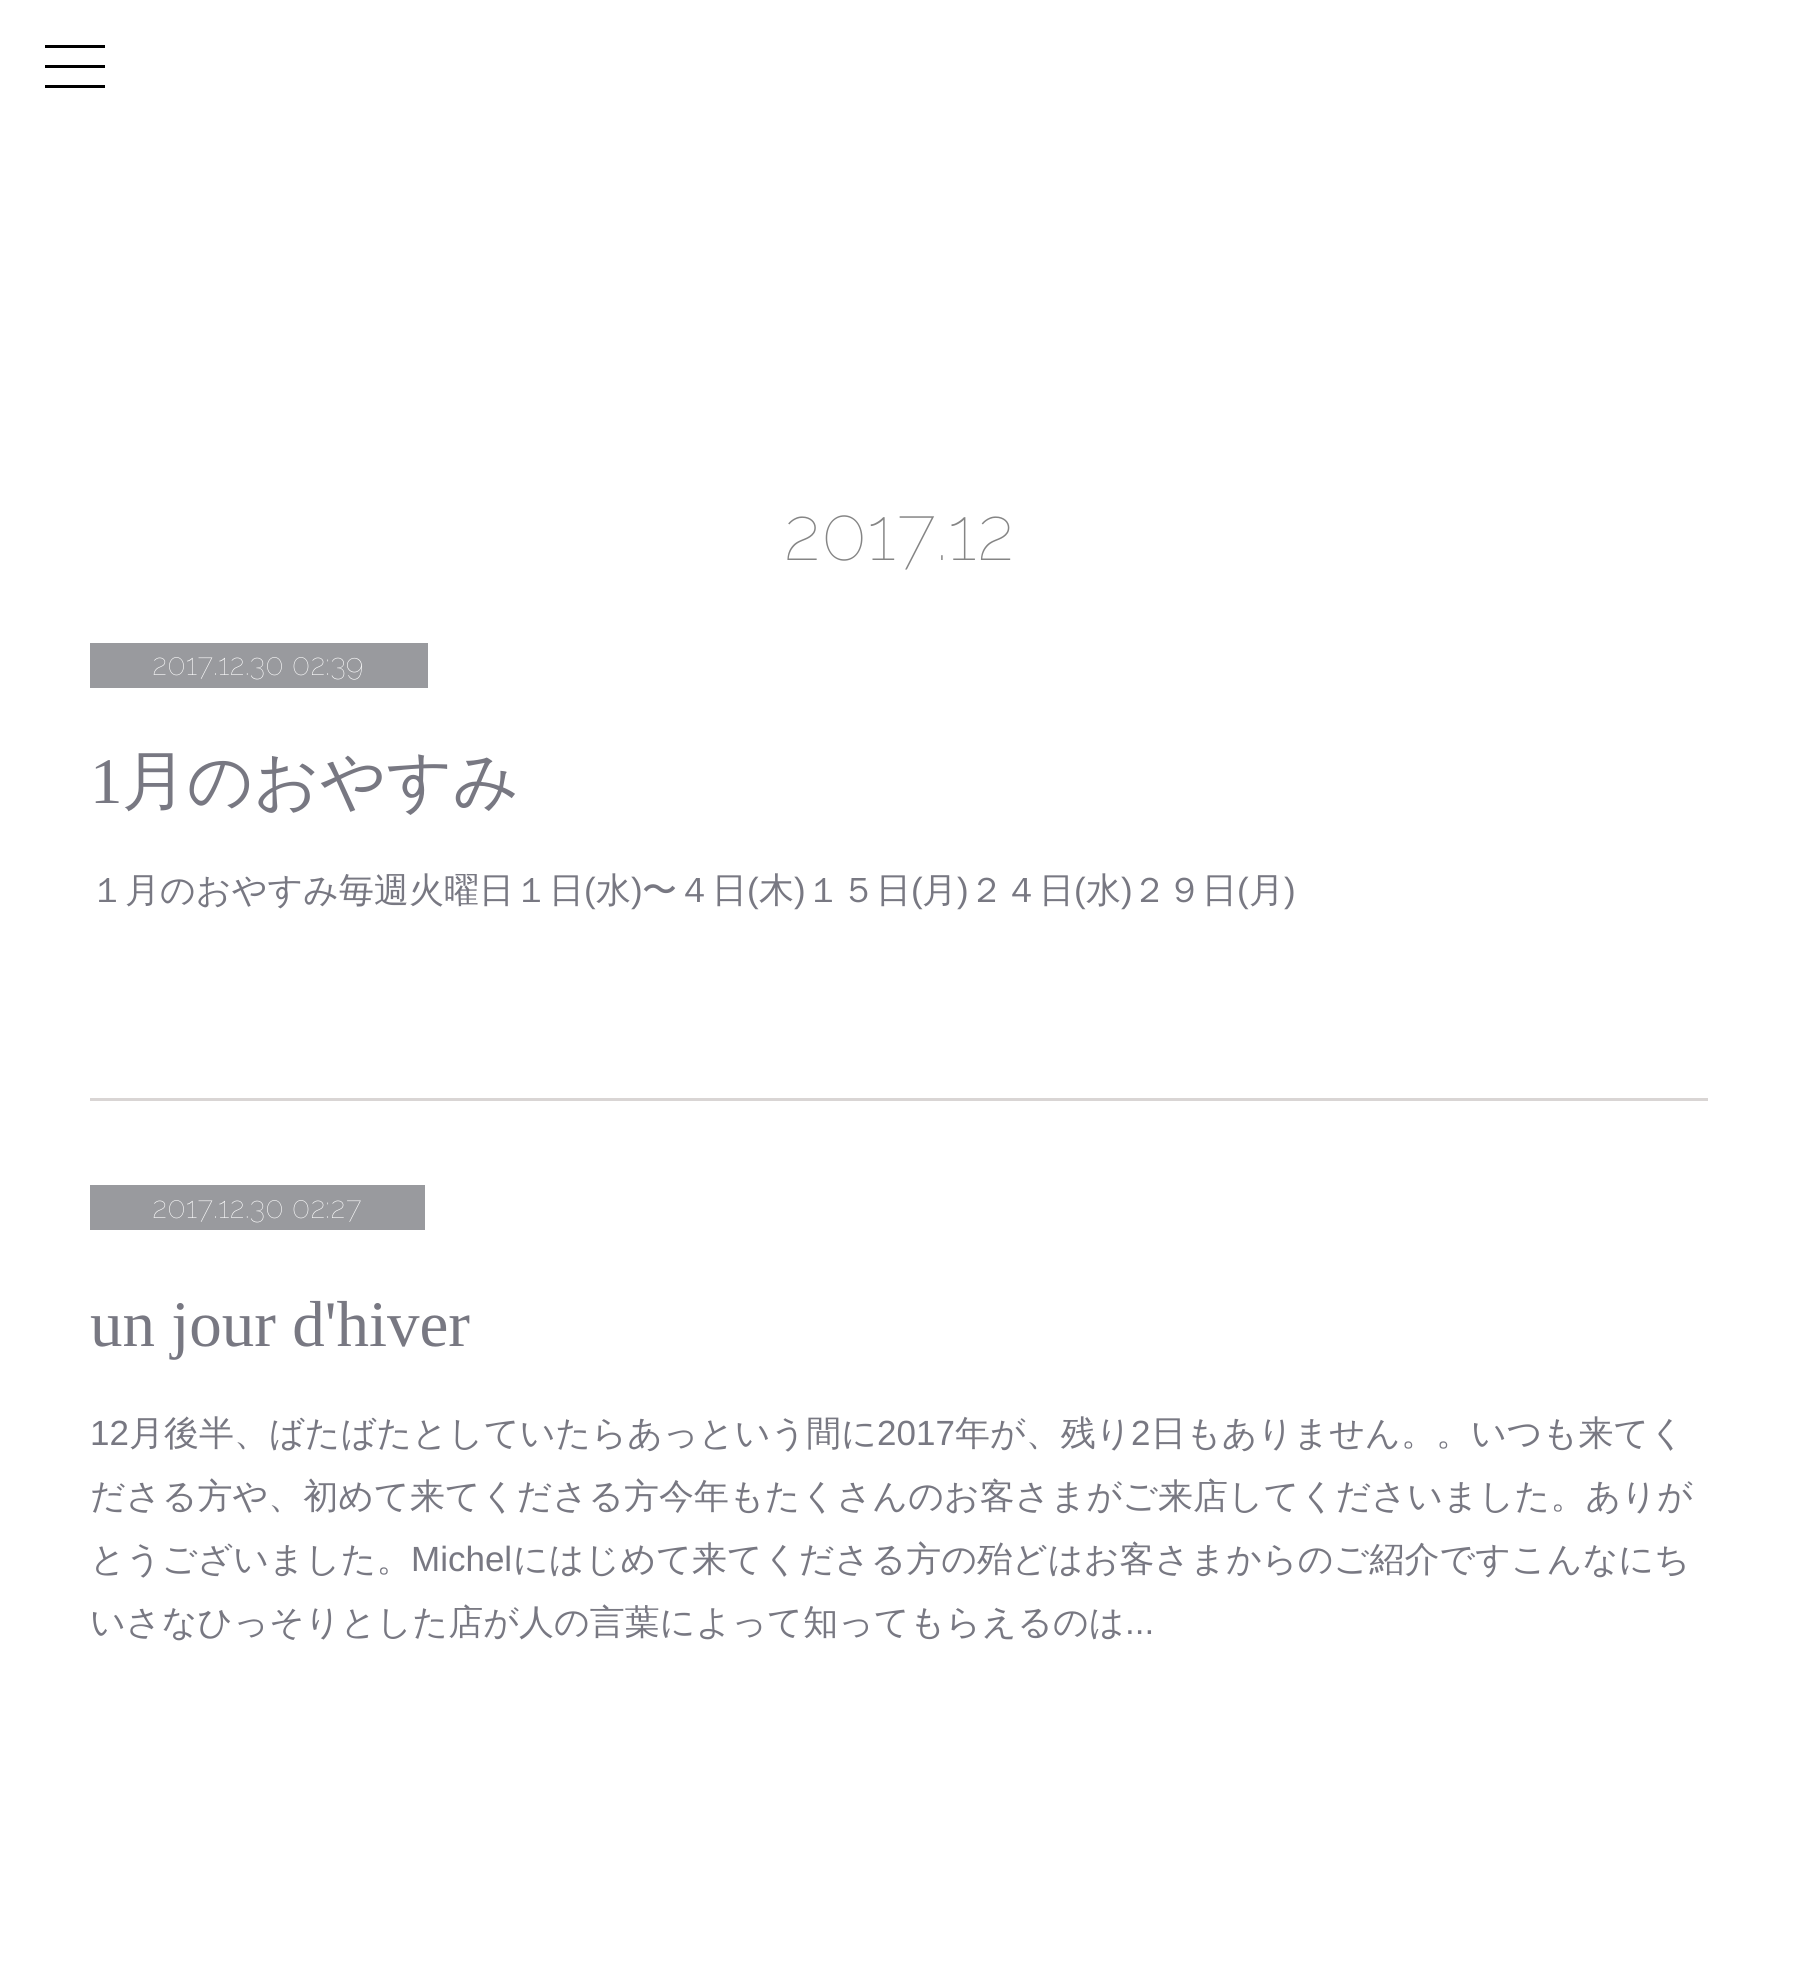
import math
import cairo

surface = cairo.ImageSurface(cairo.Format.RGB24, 1796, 1963)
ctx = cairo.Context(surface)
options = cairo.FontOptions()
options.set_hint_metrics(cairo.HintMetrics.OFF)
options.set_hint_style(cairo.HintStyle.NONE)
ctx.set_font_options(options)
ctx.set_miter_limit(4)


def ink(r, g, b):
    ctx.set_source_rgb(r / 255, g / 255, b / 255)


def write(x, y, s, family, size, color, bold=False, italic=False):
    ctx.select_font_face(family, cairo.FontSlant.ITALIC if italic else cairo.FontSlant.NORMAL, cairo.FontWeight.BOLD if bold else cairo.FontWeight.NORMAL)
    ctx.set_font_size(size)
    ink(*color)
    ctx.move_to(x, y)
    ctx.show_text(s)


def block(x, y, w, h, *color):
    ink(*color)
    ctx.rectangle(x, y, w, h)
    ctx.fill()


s1 = dict(family="Raleway Thin", size=75, color=(133, 133, 133))
s2 = dict(family="Raleway Thin", size=30, color=(255, 255, 255))
s3 = dict(family="Liberation Serif", size=65, color=(120, 120, 130))
s4 = dict(family="WenQuanYi Zen Hei Medium", size=65, color=(120, 120, 130))
s5 = dict(family="WenQuanYi Zen Hei Medium", size=35, color=(120, 120, 130))
s6 = dict(family="Liberation Sans", size=35, color=(120, 120, 130))

ink(255, 255, 255)
ctx.paint()
block(45, 45, 60, 3, 0, 0, 0)
block(45, 65, 60, 3, 0, 0, 0)
block(45, 85, 60, 3, 0, 0, 0)
write(783, 560, "2017.12", **s1)
block(90, 643, 338, 45, 153, 154, 158)
write(152, 675, "2017.12.30 02:39", **s2)
write(90, 803, "1", **s3)
write(122, 803, "月のおやすみ", **s4)
write(90, 902, "１月のおやすみ毎週火曜日１日", **s5)
write(584, 902, "(", **s6)
write(596, 902, "水", **s5)
write(631, 902, ")", **s6)
write(642, 902, "〜４日", **s5)
write(747, 902, "(", **s6)
write(759, 902, "木", **s5)
write(794, 902, ")", **s6)
write(806, 902, "１５日", **s5)
write(911, 902, "(", **s6)
write(922, 902, "月", **s5)
write(957, 902, ")", **s6)
write(969, 902, "２４日", **s5)
write(1074, 902, "(", **s6)
write(1086, 902, "水", **s5)
write(1121, 902, ")", **s6)
write(1132, 902, "２９日", **s5)
write(1237, 902, "(", **s6)
write(1249, 902, "月", **s5)
write(1284, 902, ")", **s6)
block(90, 1098, 1618, 3, 217, 213, 212)
block(90, 1185, 335, 45, 153, 154, 158)
write(152, 1218, "2017.12.30 02:27", **s2)
write(90, 1346, "un jour d'hiver", **s3)
write(90, 1445, "12", **s6)
write(129, 1445, "月後半、ばたばたとしていたらあっという間に", **s5)
write(877, 1445, "2017", **s6)
write(955, 1445, "年が、残り", **s5)
write(1131, 1445, "2", **s6)
write(1151, 1445, "日もありません。。いつも来てく", **s5)
write(90, 1508, "ださる方や、初めて来てくださる方今年もたくさんのお客さまがご来店してくださいました。ありが", **s5)
write(90, 1571, "とうございました。", **s5)
write(411, 1571, "Michel", **s6)
write(513, 1571, "にはじめて来てくださる方の殆どはお客さまからのご紹介ですこんなにち", **s5)
write(90, 1634, "いさなひっそりとした店が人の言葉によって知ってもらえるのは", **s5)
write(1125, 1634, "...", **s6)
surface.write_to_png("screenshot.png")
